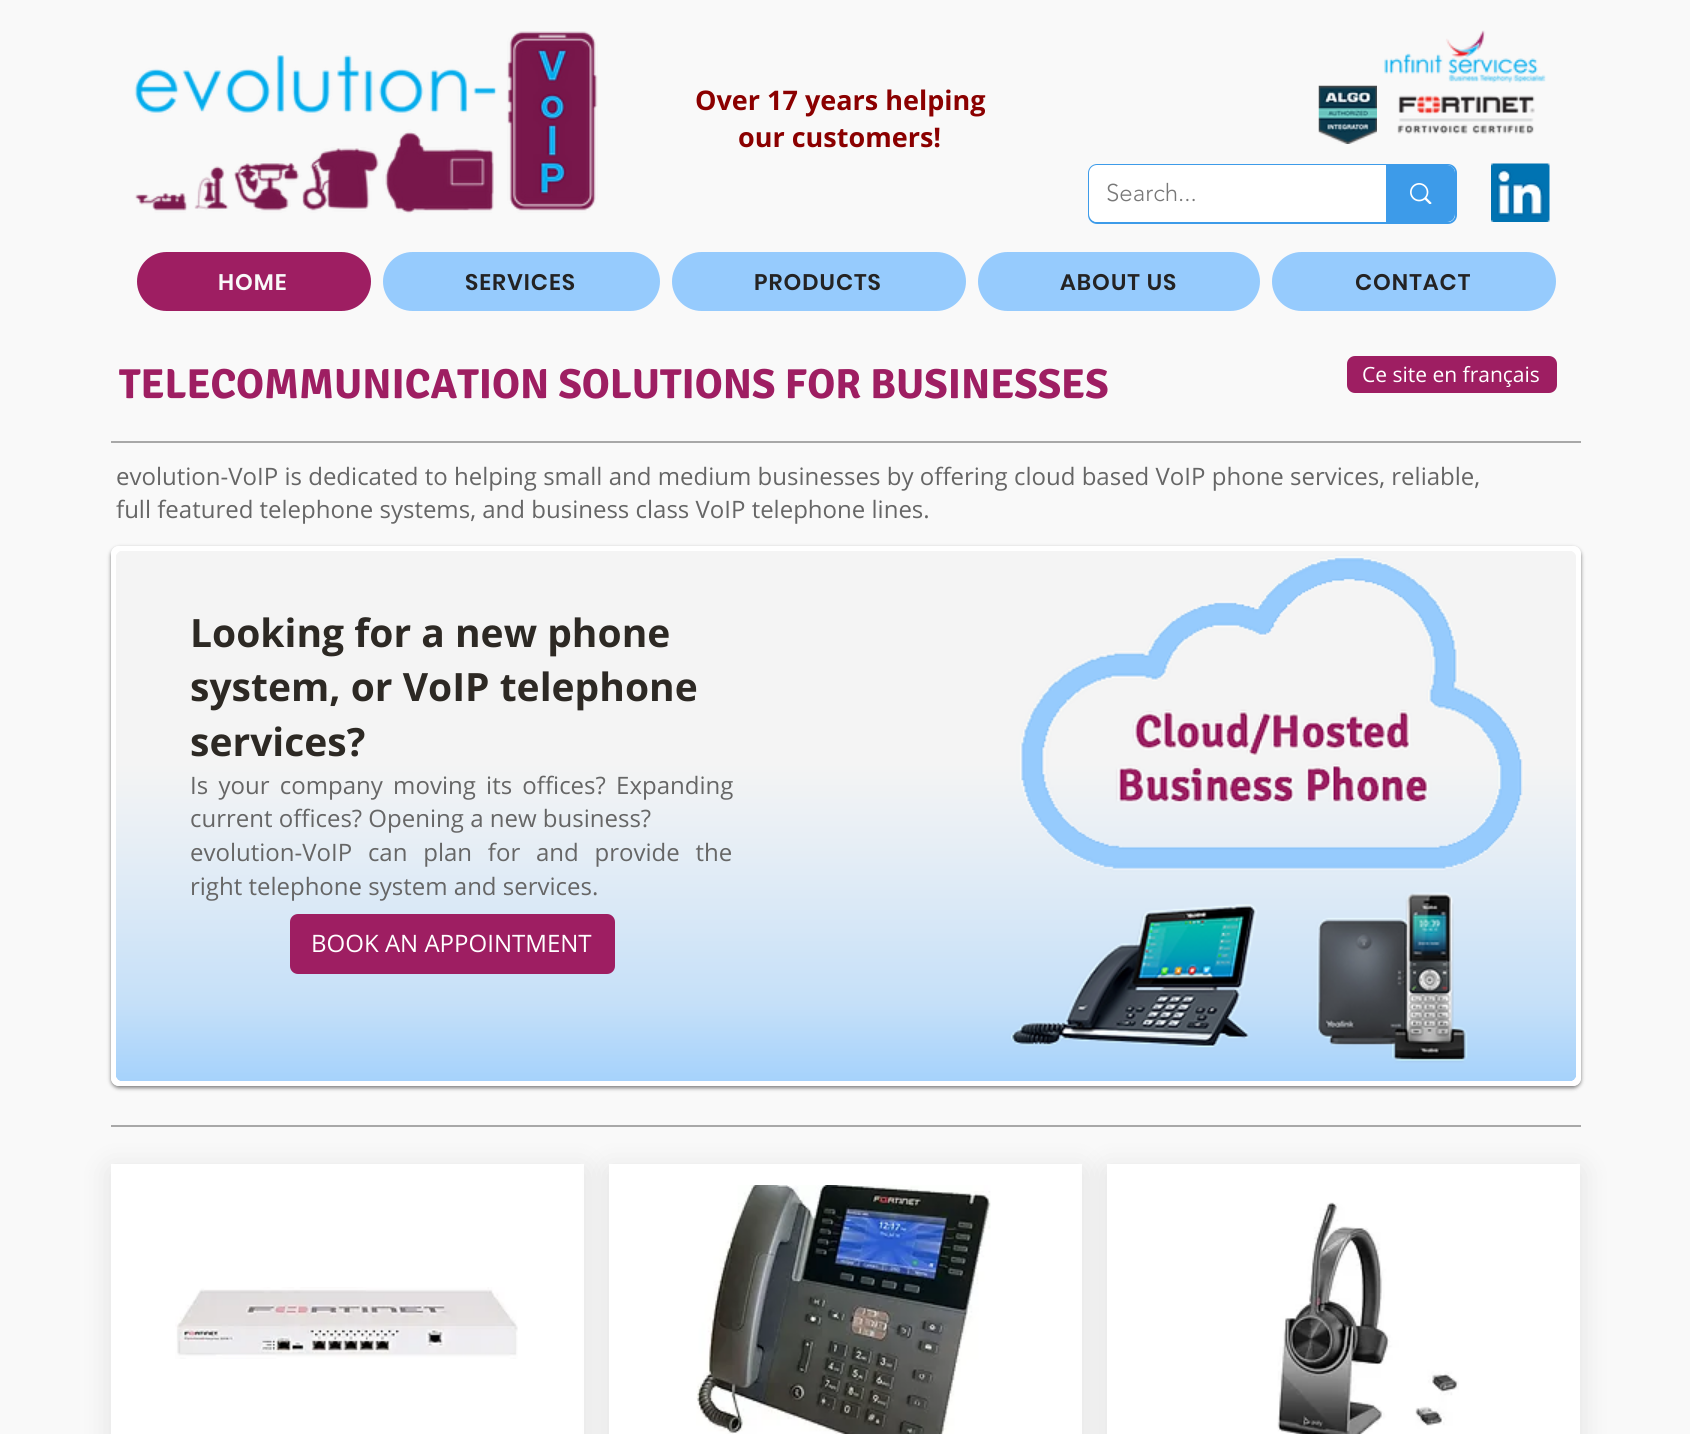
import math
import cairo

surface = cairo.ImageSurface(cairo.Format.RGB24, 1690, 1434)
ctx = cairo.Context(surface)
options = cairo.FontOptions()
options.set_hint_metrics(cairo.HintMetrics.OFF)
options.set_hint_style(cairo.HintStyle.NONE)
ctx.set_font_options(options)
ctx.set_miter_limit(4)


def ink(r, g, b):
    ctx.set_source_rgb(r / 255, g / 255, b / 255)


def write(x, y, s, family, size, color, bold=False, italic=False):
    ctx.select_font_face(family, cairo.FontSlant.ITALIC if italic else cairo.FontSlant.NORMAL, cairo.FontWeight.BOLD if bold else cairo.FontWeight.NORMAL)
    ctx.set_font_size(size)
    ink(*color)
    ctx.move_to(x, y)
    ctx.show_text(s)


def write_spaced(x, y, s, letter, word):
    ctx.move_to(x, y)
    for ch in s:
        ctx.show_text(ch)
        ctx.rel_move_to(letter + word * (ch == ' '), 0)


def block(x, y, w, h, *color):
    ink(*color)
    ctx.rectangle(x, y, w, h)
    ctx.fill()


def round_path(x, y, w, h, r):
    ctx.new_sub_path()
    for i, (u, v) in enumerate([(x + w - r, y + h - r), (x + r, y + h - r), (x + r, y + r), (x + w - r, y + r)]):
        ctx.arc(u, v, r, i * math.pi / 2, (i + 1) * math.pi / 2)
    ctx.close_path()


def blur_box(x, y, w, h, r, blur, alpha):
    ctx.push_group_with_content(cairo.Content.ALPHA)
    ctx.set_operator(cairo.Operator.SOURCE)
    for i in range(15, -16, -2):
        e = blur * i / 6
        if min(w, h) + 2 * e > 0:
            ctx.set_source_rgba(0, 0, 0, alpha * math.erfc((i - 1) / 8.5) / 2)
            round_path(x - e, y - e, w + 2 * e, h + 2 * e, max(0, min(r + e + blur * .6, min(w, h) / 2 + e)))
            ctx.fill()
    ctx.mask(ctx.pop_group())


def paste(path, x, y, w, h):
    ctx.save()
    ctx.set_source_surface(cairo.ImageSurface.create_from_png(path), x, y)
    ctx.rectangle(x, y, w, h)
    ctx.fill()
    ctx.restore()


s1 = dict(family="Open Sans", size=27, color=(139, 0, 0), bold=True)
s2 = dict(family="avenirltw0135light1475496 Light", size=24, color=(120, 120, 120))
s3 = dict(family="Signika", size=42, color=(158, 30, 98), bold=True)
s4 = dict(family="Open Sans", size=21, color=(255, 255, 255))
s5 = dict(family="Open Sans", size=24, color=(102, 102, 102))
s6 = dict(family="Open Sans", size=39, color=(45, 41, 36), bold=True)
s7 = dict(family="Open Sans", size=24, color=(255, 255, 255))

ink(249, 249, 249)
ctx.paint()
paste("pic1.png", 134, 31, 464, 183)
write(695, 110, "Over 17 years helping", **s1)
write(738, 147, "our customers!", **s1)
paste("pic2.png", 1318, 85, 59, 59)
paste("pic3.png", 1384, 30, 162, 53)
paste("pic4.png", 1397, 95, 138, 39)
round_path(1089, 165, 367, 58, 8)
ink(61, 155, 233)
ctx.stroke()
ink(255, 255, 255)
round_path(1089, 165, 366, 57, 8)
ctx.fill()
write(1106, 201, "Search...", **s2)
ink(61, 155, 233)
ctx.new_path()
ctx.move_to(1386, 165)
ctx.line_to(1447, 165)
ctx.curve_to(1451.5, 165, 1455, 168.5, 1455, 173)
ctx.line_to(1455, 214)
ctx.curve_to(1455, 218.5, 1451.5, 222, 1447, 222)
ctx.line_to(1386, 222)
ctx.close_path()
ctx.fill()
paste("pic5.png", 1410, 183, 22, 21)
paste("pic6.png", 1491, 163, 59, 59)
ink(158, 30, 98)
round_path(137, 252, 234, 59, 29.5)
ctx.fill()
ctx.select_font_face("Poppins SemiBold")
ctx.set_font_size(22.5)
ink(249, 249, 249)
write_spaced(218, 290, "HOME", 1, 0)
ink(150, 203, 253)
round_path(383, 252, 277, 59, 29.5)
ctx.fill()
ink(36, 35, 35)
write_spaced(465, 290, "SERVICES", 1, 0)
ink(150, 203, 253)
round_path(672, 252, 294, 59, 29.5)
ctx.fill()
ink(36, 35, 35)
write_spaced(754, 290, "PRODUCTS", 1, 0)
ink(150, 203, 253)
round_path(978, 252, 282, 59, 29.5)
ctx.fill()
ink(36, 35, 35)
write_spaced(1060, 290, "ABOUT US", 1, 0)
ink(150, 203, 253)
round_path(1272, 252, 284, 59, 29.5)
ctx.fill()
ink(36, 35, 35)
write_spaced(1355, 290, "CONTACT", 1, 0)
write(119, 398, "TELECOMMUNICATION SOLUTIONS FOR BUSINESSES", **s3)
round_path(1347, 356, 210, 37, 8)
ctx.fill()
write(1362, 382, "Ce site en français", **s4)
block(111, 441, 1470, 2, 168, 168, 168)
write(116, 485, "evolution-VoIP is dedicated to helping small and medium businesses by offering cloud based VoIP phone services, reliable,", **s5)
write(116, 518, "full featured telephone systems, and business class VoIP telephone lines.", **s5)
ink(0, 0, 0)
blur_box(111, 548, 1470, 540, 8, 2, 0.5)
ink(255, 255, 255)
round_path(111, 546, 1470, 540, 8)
ctx.fill()
paste("pic7.png", 116, 551, 1460, 530)
round_path(113.5, 548.5, 1465, 535, 5.5)
ctx.set_line_width(5)
ctx.stroke()
write(190, 647, "Looking for a new phone", **s6)
write(190, 701, "system, or VoIP telephone", **s6)
write(190, 756, "services?", **s6)
ctx.select_font_face("Open Sans")
ctx.set_font_size(24)
ink(102, 102, 102)
write_spaced(190, 794, "Is your company moving its offices? Expanding", 0, 4)
write(190, 827, "current offices? Opening a new business?", **s5)
write_spaced(190, 861, "evolution-VoIP can plan for and provide the", 0, 9.5)
write(190, 895, "right telephone system and services.", **s5)
ink(158, 30, 98)
round_path(290, 914, 325, 60, 8)
ctx.fill()
write(311, 952, "BOOK AN APPOINTMENT", **s7)
block(111, 1125, 1470, 2, 168, 168, 168)
ink(0, 0, 0)
blur_box(111, 1170, 473, 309, 0, 15, 0.1)
block(111, 1164, 473, 270, 255, 255, 255)
paste("pic8.png", 175, 1287, 343, 72)
ink(0, 0, 0)
blur_box(609, 1170, 473, 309, 0, 15, 0.1)
block(609, 1164, 473, 270, 255, 255, 255)
paste("pic9.png", 696, 1185, 295, 249)
ink(0, 0, 0)
blur_box(1107, 1170, 473, 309, 0, 15, 0.1)
block(1107, 1164, 473, 270, 255, 255, 255)
paste("pic10.png", 1277, 1202, 182, 232)
surface.write_to_png("screenshot.png")
